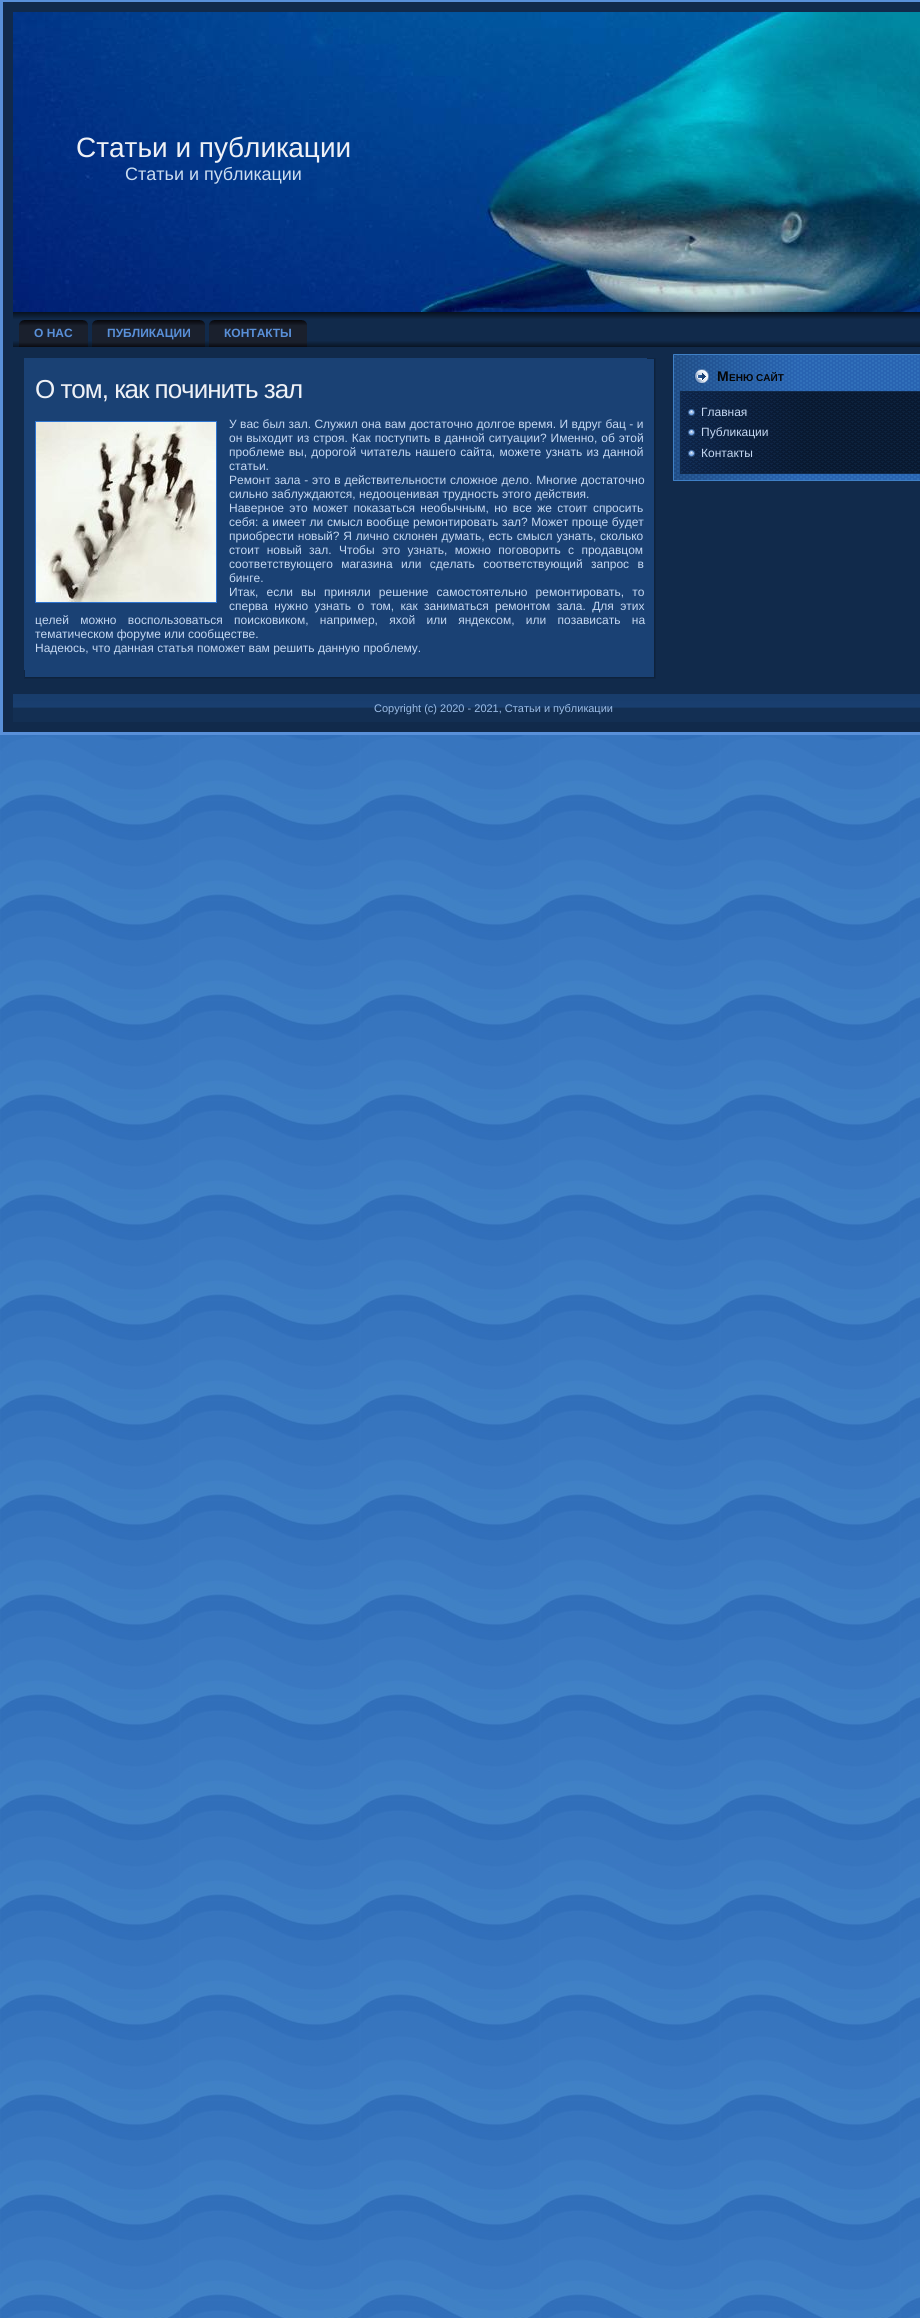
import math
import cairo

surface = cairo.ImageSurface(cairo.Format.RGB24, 920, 2318)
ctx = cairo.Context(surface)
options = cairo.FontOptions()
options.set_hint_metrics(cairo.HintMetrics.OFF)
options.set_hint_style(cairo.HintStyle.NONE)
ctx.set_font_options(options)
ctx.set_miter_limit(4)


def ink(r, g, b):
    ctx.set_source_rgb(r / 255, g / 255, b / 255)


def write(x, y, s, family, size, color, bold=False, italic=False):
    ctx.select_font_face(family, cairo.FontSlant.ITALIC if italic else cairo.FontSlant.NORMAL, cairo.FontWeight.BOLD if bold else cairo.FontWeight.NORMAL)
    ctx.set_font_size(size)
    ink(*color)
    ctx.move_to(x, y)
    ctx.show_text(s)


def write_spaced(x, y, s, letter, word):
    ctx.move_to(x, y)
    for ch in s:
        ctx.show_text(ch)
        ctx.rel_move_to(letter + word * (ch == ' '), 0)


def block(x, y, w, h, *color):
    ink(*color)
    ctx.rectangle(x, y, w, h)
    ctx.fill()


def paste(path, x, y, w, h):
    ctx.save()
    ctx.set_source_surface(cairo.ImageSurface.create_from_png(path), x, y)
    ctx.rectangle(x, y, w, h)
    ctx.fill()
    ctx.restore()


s1 = dict(family="Liberation Sans", size=28, color=(239, 241, 246))
s2 = dict(family="Liberation Sans", size=18, color=(204, 221, 240))
s3 = dict(family="Liberation Sans", size=12, color=(89, 144, 217), bold=True)
s4 = dict(family="Liberation Sans", size=12, color=(197, 216, 242))
s5 = dict(family="Liberation Sans", size=14, color=(4, 5, 6), bold=True)
s6 = dict(family="Liberation Sans", size=10, color=(4, 5, 6), bold=True)
s7 = dict(family="Liberation Sans", size=11, color=(155, 189, 232))

ink(255, 255, 255)
ctx.paint()
paste("pic1.png", 0, 735, 920, 1583)
block(0, 0, 920, 2, 89, 144, 217)
block(0, 2, 3, 730, 89, 144, 217)
block(3, 2, 917, 730, 17, 42, 75)
paste("pic2.png", 13, 12, 907, 300)
write(76, 157, "Статьи и публикации", **s1)
write(125, 180, "Статьи и публикации", **s2)
paste("pic3.png", 13, 312, 907, 35)
paste("pic4.png", 19, 320, 64, 27)
paste("pic5.png", 83, 320, 5, 27)
write(34, 337, "О НАС", **s3)
paste("pic6.png", 92, 320, 108, 27)
paste("pic5.png", 200, 320, 5, 27)
write(107, 337, "ПУБЛИКАЦИИ", **s3)
paste("pic7.png", 209, 320, 93, 27)
paste("pic5.png", 302, 320, 5, 27)
write(224, 337, "КОНТАКТЫ", **s3)
block(24, 358, 623, 8, 26, 65, 116)
paste("pic8.png", 647, 358, 9, 8)
block(24, 366, 623, 304, 26, 65, 116)
paste("pic9.png", 647, 366, 9, 304)
ctx.select_font_face("Liberation Sans")
ctx.set_font_size(26)
ink(239, 241, 246)
write_spaced(35, 398, "О том, как починить зал", -1, 0)
ctx.rectangle(35.5, 421.5, 181, 181)
ink(47, 117, 208)
ctx.set_line_width(1)
ctx.stroke()
paste("pic10.png", 36, 422, 180, 180)
ctx.set_font_size(12)
ink(197, 216, 242)
write_spaced(229, 428, "У вас был зал. Служил она вам достаточно долгое время. И вдруг бац - и", 0, 0.1)
write_spaced(229, 442, "он выходит из строя. Как поступить в данной ситуации? Именно, об этой", 0, 0.6)
write_spaced(229, 456, "проблеме вы, дорогой читатель нашего сайта, можете узнать из данной", 0, 1)
write(229, 470, "статьи.", **s4)
write_spaced(229, 484, "Ремонт зала - это в действительности сложное дело. Многие достаточно", 0, 0.5)
write(229, 498, "сильно заблуждаются, недооценивая трудность этого действия.", **s4)
write_spaced(229, 512, "Наверное это может показаться необычным, но все же стоит спросить", 0, 2)
write_spaced(229, 526, "себя: а имеет ли смысл вообще ремонтировать зал? Может проще будет", 0, 0.25)
write_spaced(229, 540, "приобрести новый? Я лично склонен думать, есть смысл узнать, сколько", 0, 0.5)
write_spaced(229, 554, "стоит новый зал. Чтобы это узнать, можно поговорить с продавцом", 0, 4)
write_spaced(229, 568, "соответствующего магазина или сделать соответствующий запрос в", 0, 5)
write(229, 582, "бинге.", **s4)
write_spaced(229, 596, "Итак, если вы приняли решение самостоятельно ремонтировать, то", 0, 4.75)
write_spaced(229, 610, "сперва нужно узнать о том, как заниматься ремонтом зала. Для этих", 0, 3)
write_spaced(35, 624, "целей можно воспользоваться поисковиком, например, яхой или яндексом, или позависать на", 0, 8)
write(35, 638, "тематическом форуме или сообществе.", **s4)
write(35, 652, "Надеюсь, что данная статья поможет вам решить данную проблему.", **s4)
paste("pic11.png", 24, 670, 8, 9)
paste("pic12.png", 32, 670, 615, 9)
paste("pic13.png", 647, 670, 9, 9)
block(673, 354, 1, 1, 55, 112, 177)
block(674, 354, 246, 1, 63, 128, 198)
block(673, 355, 1, 125, 63, 128, 198)
paste("pic14.png", 674, 355, 246, 125)
paste("pic15.png", 694, 369, 15, 15)
write(717, 381, "М", **s5)
write(729, 381, "ЕНЮ", **s6)
write(756, 381, "САЙТ", **s6)
block(680, 391, 1, 1, 19, 45, 84)
block(681, 391, 239, 1, 17, 42, 75)
block(680, 392, 1, 81, 17, 42, 75)
paste("pic16.png", 681, 392, 239, 81)
paste("pic17.png", 688, 409, 7, 7)
write(701, 416, "Главная", **s4)
paste("pic18.png", 688, 429, 7, 7)
write(701, 436, "Публикации", **s4)
paste("pic19.png", 688, 450, 7, 7)
write(701, 457, "Контакты", **s4)
block(680, 473, 1, 1, 16, 42, 79)
block(681, 473, 239, 1, 17, 42, 75)
block(673, 480, 1, 1, 59, 121, 191)
block(674, 480, 246, 1, 63, 128, 198)
paste("pic20.png", 13, 694, 907, 28)
write(374, 712, "Copyright (c) 2020 - 2021, Статьи и публикации", **s7)
block(0, 732, 920, 3, 89, 144, 217)
surface.write_to_png("screenshot.png")
